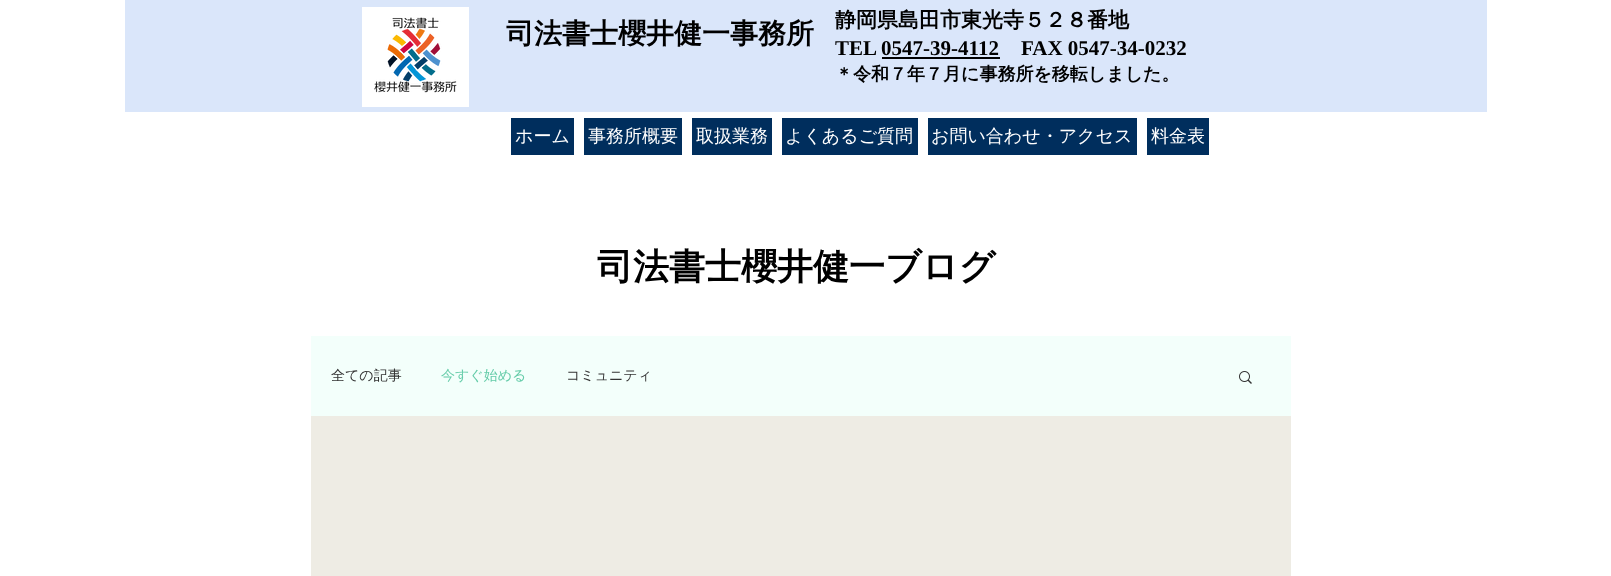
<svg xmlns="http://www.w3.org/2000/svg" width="1611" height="576">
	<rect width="100%" height="100%" fill="#FFFFFF" />
	<rect x="125" y="0" width="1362" height="112" fill="#DAE6FA" />
	<rect x="362" y="7" width="107" height="100" fill="#FFFFFF" />
	<image x="374" y="17" width="83" height="76" href="assets/img1.png" />
	<text x="506" y="43" font-family="WenQuanYi Zen Hei" font-size="28" font-weight="700" fill="#000000">司法書士櫻井健一事務所</text>
	<text x="835" y="27" font-family="WenQuanYi Zen Hei" font-size="21" font-weight="700" fill="#000000">静岡県島田市東光寺５２８番地</text>
	<text x="835" y="55" font-family="Liberation Serif" font-size="21" font-weight="700" fill="#000000">TEL 0547-39-4112</text>
	<rect x="882" y="57" width="118" height="2" fill="#000000" />
	<text x="1021" y="55" font-family="Liberation Serif" font-size="21" font-weight="700" fill="#000000">FAX 0547-34-0232</text>
	<text x="835" y="80" font-family="WenQuanYi Zen Hei" font-size="18" font-weight="700" fill="#000000">＊令和７年７月に事務所を移転しました。</text>
	<rect x="511" y="118" width="63" height="37" fill="#002E5D" />
	<text x="515" y="142" font-family="WenQuanYi Zen Hei" font-size="18" font-weight="500" fill="#FFFFFF">ホーム</text>
	<rect x="584" y="118" width="98" height="37" fill="#002E5D" />
	<text x="588" y="142" font-family="WenQuanYi Zen Hei" font-size="18" font-weight="500" fill="#FFFFFF">事務所概要</text>
	<rect x="692" y="118" width="80" height="37" fill="#002E5D" />
	<text x="696" y="142" font-family="WenQuanYi Zen Hei" font-size="18" font-weight="500" fill="#FFFFFF">取扱業務</text>
	<rect x="782" y="118" width="136" height="37" fill="#002E5D" />
	<text x="785" y="142" font-family="WenQuanYi Zen Hei" font-size="18" font-weight="500" fill="#FFFFFF">よくあるご質問</text>
	<rect x="928" y="118" width="209" height="37" fill="#002E5D" />
	<text x="931" y="142" font-family="WenQuanYi Zen Hei" font-size="18" font-weight="500" fill="#FFFFFF">お問い合わせ・アクセス</text>
	<rect x="1147" y="118" width="62" height="37" fill="#002E5D" />
	<text x="1151" y="142" font-family="WenQuanYi Zen Hei" font-size="18" font-weight="500" fill="#FFFFFF">料金表</text>
	<text x="597" y="279" font-family="WenQuanYi Zen Hei" font-size="36" font-weight="700" fill="#000000">司法書士櫻井健一ブログ</text>
	<rect x="311" y="416" width="980" height="160" fill="#EEECE4" />
	<rect x="311" y="336" width="980" height="80" fill="#F3FFFB" />
	<text x="331" y="380" font-family="WenQuanYi Zen Hei" font-size="14" font-weight="500" fill="#333333">全ての記事</text>
	<text x="441" y="380" font-family="WenQuanYi Zen Hei" font-size="14" font-weight="500" fill="#65CCA9">今すぐ始める</text>
	<text x="566" y="380" font-family="WenQuanYi Zen Hei" font-size="14" font-weight="500" fill="#333333">コミュニティ</text>
	<image x="1239" y="371" width="13" height="13" href="assets/img2.png" />
</svg>
